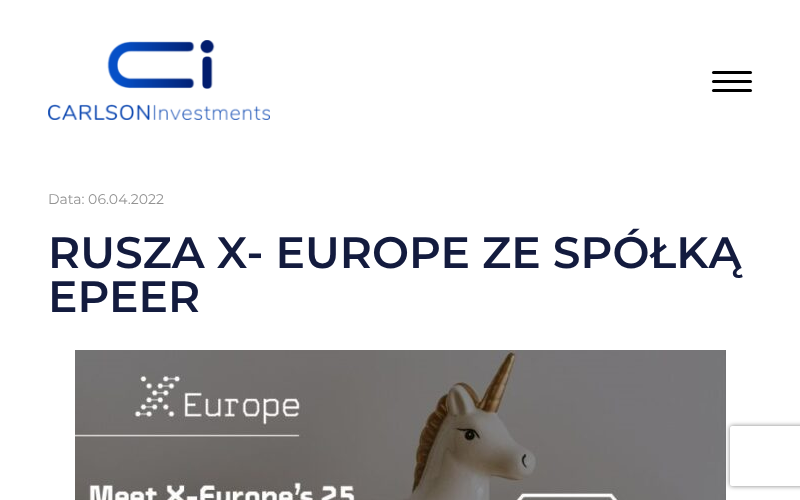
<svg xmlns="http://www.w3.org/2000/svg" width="800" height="500">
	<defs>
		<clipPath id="clip1"><path d="M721 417H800V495H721ZM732 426H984C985 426 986 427 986 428V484C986 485 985 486 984 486H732C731 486 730 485 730 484V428C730 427 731 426 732 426Z" clip-rule="evenodd" /></clipPath>
	</defs>
	<rect width="100%" height="100%" fill="#FFFFFF" />
	<image x="48" y="40" width="222" height="80" href="assets/img1.png" />
	<rect x="712" y="71" width="40" height="3" rx="1.5" fill="#000000" />
	<rect x="712" y="80" width="40" height="3" rx="1.5" fill="#000000" />
	<rect x="712" y="89" width="40" height="3" rx="1.5" fill="#000000" />
	<text x="48" y="204" font-family="Montserrat" font-size="14" fill="#939393">Data: 06.04.2022</text>
	<g font-family="Montserrat" font-size="44" font-weight="600" fill="#131B3E">
		<text x="48" y="268">RUSZA X- EUROPE ZE SPÓŁKĄ</text>
		<text x="48" y="312">EPEER</text>
	</g>
	<image x="75" y="350" width="651" height="150" href="assets/img2.png" />
	<g clip-path="url(#clip1)">
		<rect x="730" y="426" width="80" height="60" rx="2" fill="#808080" filter="blur(2.5px)" />
	</g>
</svg>
